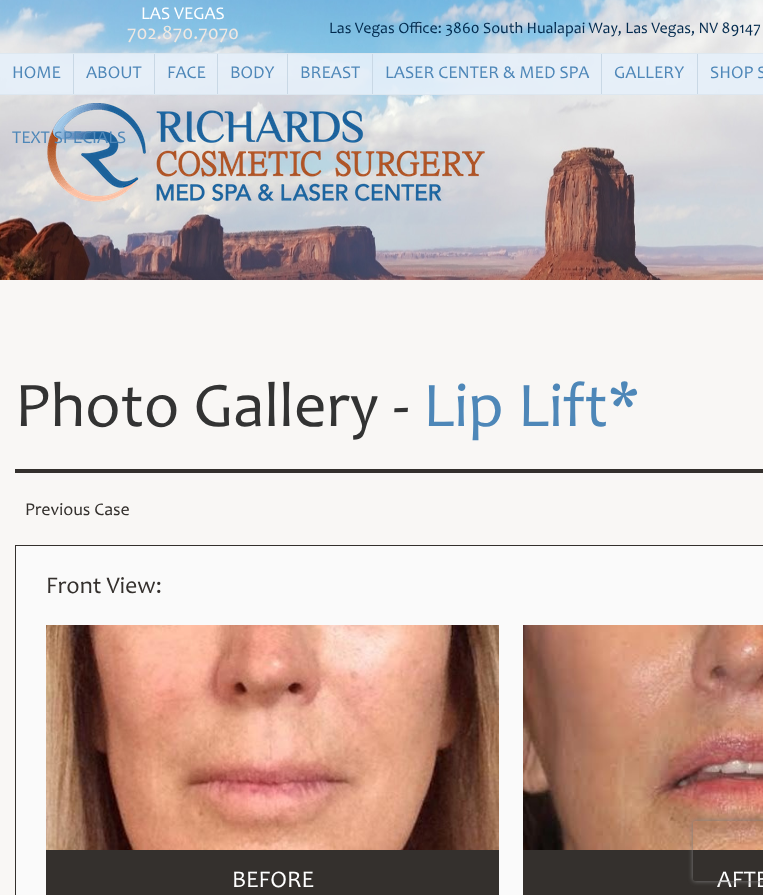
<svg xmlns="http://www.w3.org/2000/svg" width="763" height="895">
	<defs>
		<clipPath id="clip1"><path d="M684 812H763V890H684ZM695 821H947C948 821 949 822 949 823V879C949 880 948 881 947 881H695C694 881 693 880 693 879V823C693 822 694 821 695 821Z" clip-rule="evenodd" /></clipPath>
	</defs>
	<rect width="100%" height="100%" fill="#F9F7F5" />
	<image x="0" y="0" width="763" height="280" href="assets/img2.png" />
	<text x="141" y="19" font-family="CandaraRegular" font-size="18" fill="#FFFFFF">LAS VEGAS</text>
	<text x="127" y="39" font-family="CandaraRegular" font-size="20" fill="#F0E8E2">702.870.7070</text>
	<image x="47" y="103" width="438" height="99" href="assets/img1.png" />
	<text x="329" y="33" font-family="CandaraRegular" font-size="16" fill="#00294D">Las Vegas Office: 3860 South Hualapai Way, Las Vegas, NV 89147</text>
	<rect x="0" y="53" width="763" height="42" fill="#E6F0FA" fill-opacity="0.9" />
	<rect x="0" y="53" width="763" height="1" fill="#DBE5EE" fill-opacity="0.75" />
	<rect x="0" y="94" width="763" height="1" fill="#DAE4ED" fill-opacity="0.75" />
	<rect x="73" y="54" width="1" height="40" fill="#C9D8E5" />
	<text x="12" y="78" font-family="CandaraRegular" font-size="18" fill="#4E87B8">HOME</text>
	<rect x="154" y="54" width="1" height="40" fill="#C9D8E5" />
	<text x="86" y="78" font-family="CandaraRegular" font-size="18" fill="#4E87B8">ABOUT</text>
	<rect x="217" y="54" width="1" height="40" fill="#C9D8E5" />
	<text x="167" y="78" font-family="CandaraRegular" font-size="18" fill="#4E87B8">FACE</text>
	<rect x="287" y="54" width="1" height="40" fill="#C9D8E5" />
	<text x="230" y="78" font-family="CandaraRegular" font-size="18" fill="#4E87B8">BODY</text>
	<rect x="372" y="54" width="1" height="40" fill="#C9D8E5" />
	<text x="300" y="78" font-family="CandaraRegular" font-size="18" fill="#4E87B8">BREAST</text>
	<rect x="601" y="54" width="1" height="40" fill="#C9D8E5" />
	<text x="385" y="78" font-family="CandaraRegular" font-size="18" fill="#4E87B8">LASER CENTER &amp; MED SPA</text>
	<rect x="697" y="54" width="1" height="40" fill="#C9D8E5" />
	<g font-family="CandaraRegular" font-size="18" fill="#4E87B8">
		<text x="614" y="78">GALLERY</text>
		<text x="710" y="78">SHOP S</text>
		<text x="12" y="143">TEXT SPECIALS</text>
	</g>
	<rect x="15" y="469" width="748" height="4" fill="#34302D" />
	<text x="15" y="426" font-family="CandaraRegular" font-size="64" fill="#333333">Photo Gallery -</text>
	<text x="423" y="426" font-family="CandaraRegular" font-size="64" fill="#4E87B8">Lip Lift*</text>
	<text x="25" y="515" font-family="CandaraRegular" font-size="18" fill="#34302D">Previous Case</text>
	<rect x="15.5" y="545.5" width="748" height="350" fill="#FAFAFA" stroke="#34302D" />
	<text x="46" y="593" font-family="CandaraRegular" font-size="24" fill="#34302D">Front View:</text>
	<rect x="46" y="850" width="453" height="45" fill="#34302D" />
	<image x="46" y="625" width="453" height="225" href="assets/img3.png" />
	<text x="232" y="887" font-family="CandaraRegular" font-size="24" fill="#FFFFFF">BEFORE</text>
	<rect x="523" y="850" width="240" height="45" fill="#34302D" />
	<image x="523" y="625" width="240" height="225" href="assets/img4.png" />
	<text x="717" y="887" font-family="CandaraRegular" font-size="24" fill="#FFFFFF">AFTE</text>
	<g clip-path="url(#clip1)">
		<rect x="693" y="821" width="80" height="60" rx="2" fill="#808080" filter="blur(2.5px)" />
	</g>
</svg>
